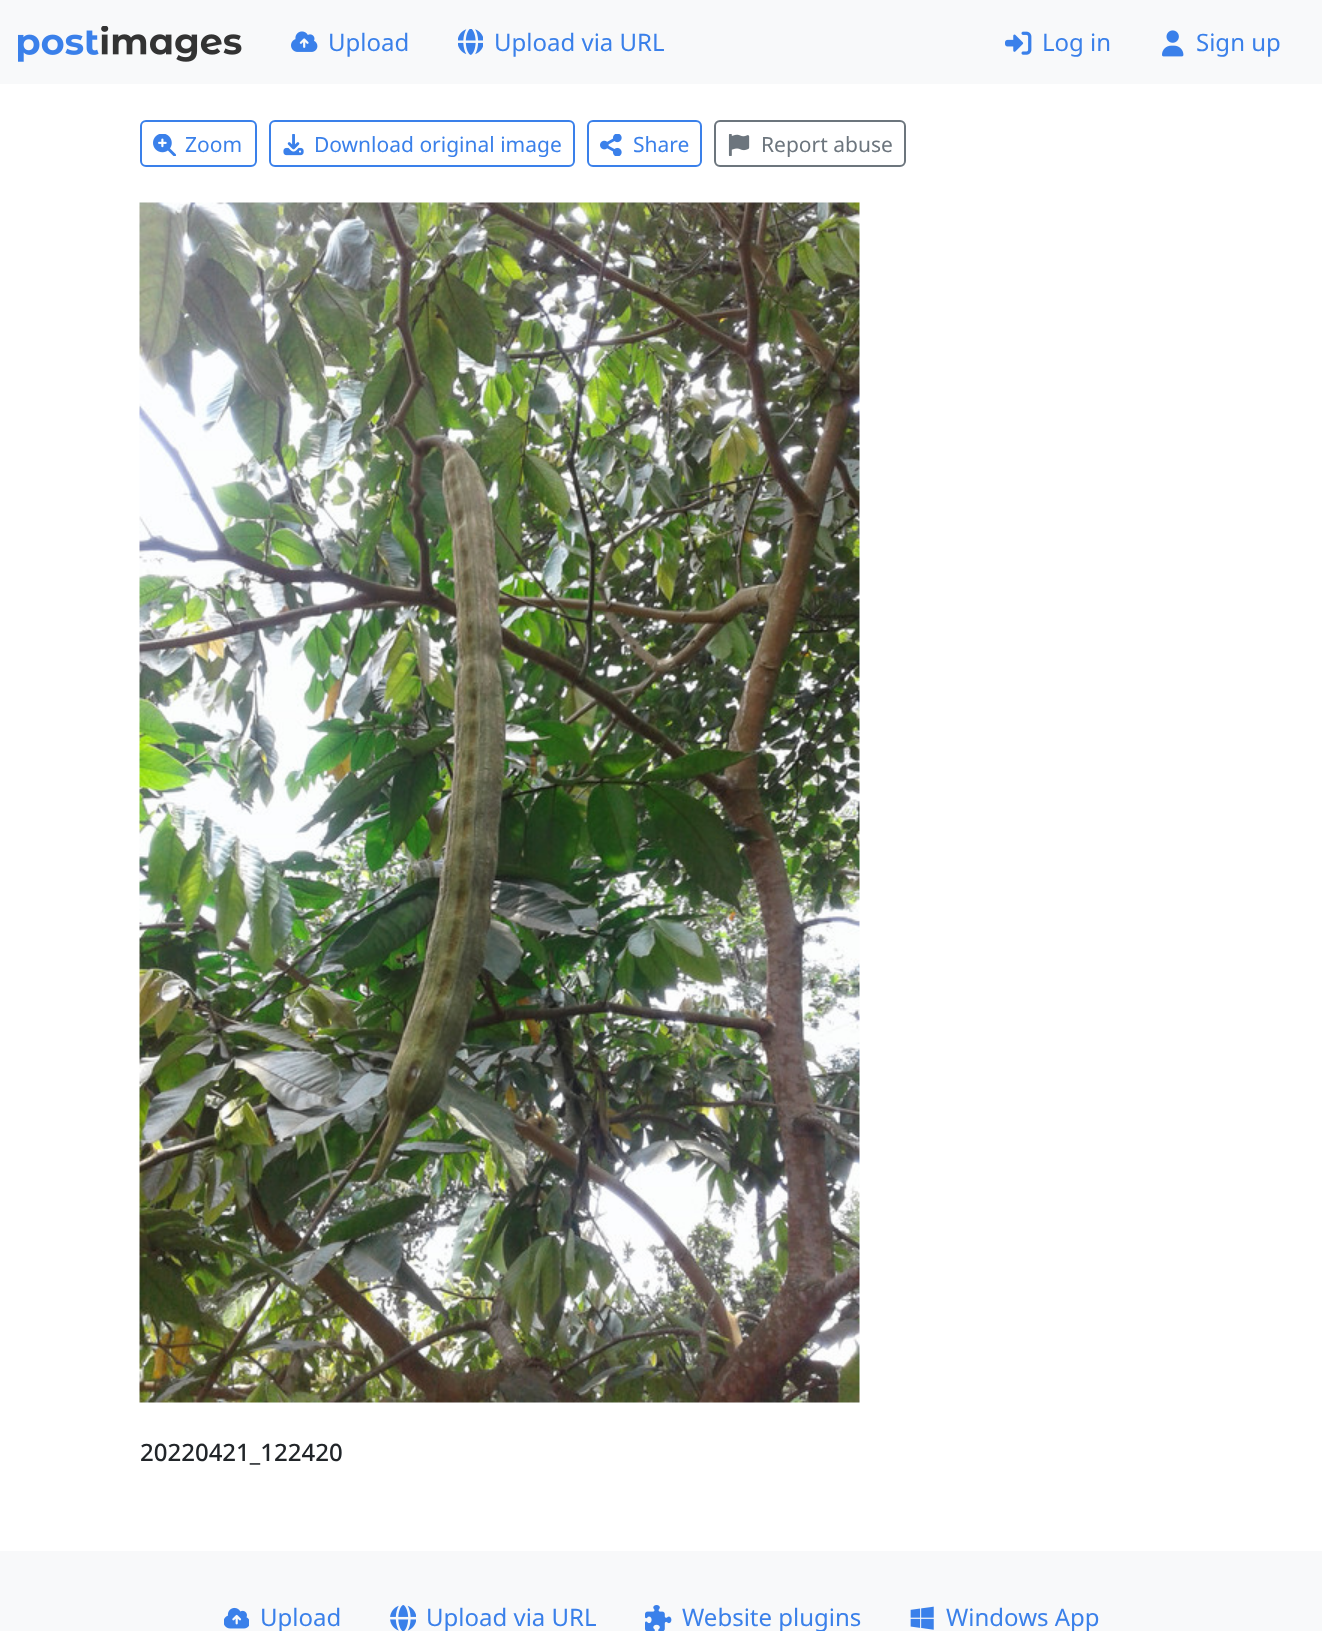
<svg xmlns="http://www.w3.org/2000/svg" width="1322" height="1631">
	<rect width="100%" height="100%" fill="#FFFFFF" />
	<rect x="0" y="0" width="1322" height="84" fill="#F8F9FA" />
	<image x="18" y="26" width="224" height="36" href="assets/img1.png" />
	<image x="291" y="31" width="27" height="21" href="assets/img2.png" />
	<text x="328" y="51" font-family="Noto Sans" font-size="24" fill="#3A80EA">Upload</text>
	<image x="458" y="29" width="25" height="26" href="assets/img3.png" />
	<text x="494" y="51" font-family="Noto Sans" font-size="24" fill="#3A80EA">Upload via URL</text>
	<image x="1005" y="31" width="27" height="24" href="assets/img4.png" />
	<text x="1042" y="51" font-family="Noto Sans" font-size="24" fill="#3A80EA">Log in</text>
	<image x="1162" y="30" width="22" height="27" href="assets/img5.png" />
	<text x="1196" y="51" font-family="Noto Sans" font-size="24" fill="#3A80EA">Sign up</text>
	<rect x="141" y="121" width="115" height="45" rx="5" fill="none" stroke="#3A80EA" stroke-width="2" />
	<image x="153" y="134" width="23" height="22" href="assets/img6.png" />
	<text x="185" y="152" font-family="Noto Sans" font-size="21" fill="#3A80EA">Zoom</text>
	<rect x="270" y="121" width="304" height="45" rx="5" fill="none" stroke="#3A80EA" stroke-width="2" />
	<image x="283" y="134" width="21" height="22" href="assets/img7.png" />
	<text x="314" y="152" font-family="Noto Sans" font-size="21" fill="#3A80EA">Download original image</text>
	<rect x="588" y="121" width="113" height="45" rx="5" fill="none" stroke="#3A80EA" stroke-width="2" />
	<image x="600" y="134" width="22" height="22" href="assets/img8.png" />
	<text x="633" y="152" font-family="Noto Sans" font-size="21" fill="#3A80EA">Share</text>
	<rect x="715" y="121" width="190" height="45" rx="5" fill="none" stroke="#6C757D" stroke-width="2" />
	<image x="728" y="134" width="22" height="22" href="assets/img9.png" />
	<text x="761" y="152" font-family="Noto Sans" font-size="21" fill="#6C757D">Report abuse</text>
	<image x="139" y="202" width="721" height="1201" href="assets/img10.png" />
	<text x="140" y="1461" font-family="Noto Sans" font-size="24" font-weight="500" fill="#212529">20220421_122420</text>
	<rect x="0" y="1551" width="1322" height="80" fill="#F8F9FA" />
	<image x="224" y="1607" width="25" height="22" href="assets/img11.png" />
	<text x="260" y="1626" font-family="Noto Sans" font-size="24" fill="#3A80EA">Upload</text>
	<image x="390" y="1605" width="26" height="26" href="assets/img12.png" />
	<text x="426" y="1626" font-family="Noto Sans" font-size="24" fill="#3A80EA">Upload via URL</text>
	<image x="645" y="1605" width="27" height="26" href="assets/img13.png" />
	<text x="682" y="1626" font-family="Noto Sans" font-size="24" fill="#3A80EA">Website plugins</text>
	<image x="910" y="1606" width="24" height="24" href="assets/img14.png" />
	<text x="946" y="1626" font-family="Noto Sans" font-size="24" fill="#3A80EA">Windows App</text>
</svg>
